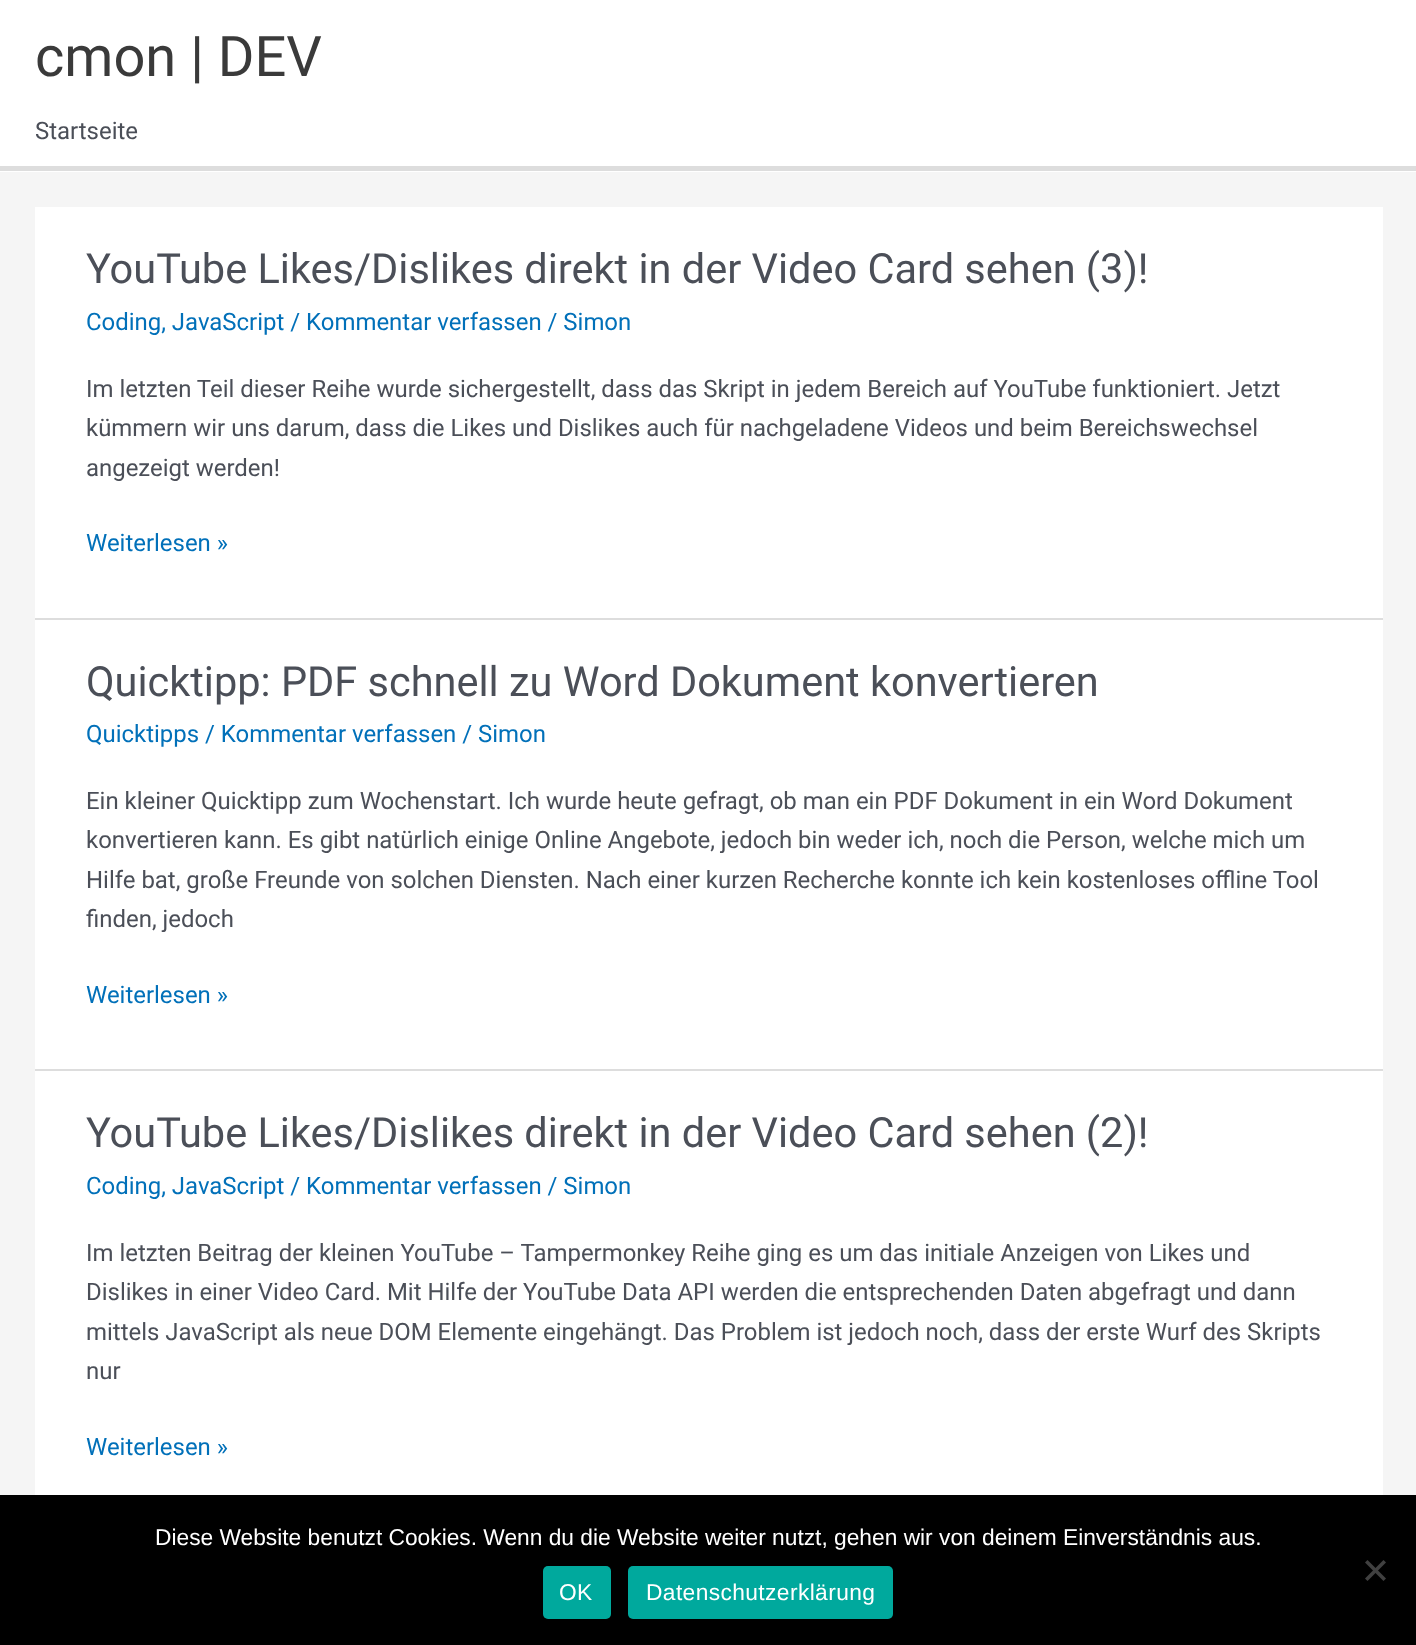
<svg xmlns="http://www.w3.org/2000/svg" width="1416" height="1645">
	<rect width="100%" height="100%" fill="#F5F5F5" />
	<rect x="0" y="0" width="1416" height="172" fill="#FFFFFF" />
	<rect x="0" y="166" width="1416" height="5" fill="#DDDDDD" />
	<text x="35" y="76" font-family="Roboto" font-size="56" fill="#3A3A3A">cmon | DEV</text>
	<text x="35" y="139" font-family="Roboto" font-size="23.95" fill="#4B4F58">Startseite</text>
	<rect x="35" y="207" width="1348" height="411" fill="#FFFFFF" />
	<rect x="35" y="618" width="1348" height="2" fill="#DDDDDD" />
	<text x="86" y="283" font-family="Roboto" font-size="41.5" fill="#4B4F58">YouTube Likes/Dislikes direkt in der Video Card sehen (3)!</text>
	<text x="86" y="330" font-family="Roboto" font-size="23.95" fill="#0170B9">Coding, JavaScript / Kommentar verfassen / Simon</text>
	<g font-family="Roboto" font-size="23.95" fill="#4B4F58">
		<text x="86" y="397">Im letzten Teil dieser Reihe wurde sichergestellt, dass das Skript in jedem Bereich auf YouTube funktioniert. Jetzt</text>
		<text x="86" y="436">kümmern wir uns darum, dass die Likes und Dislikes auch für nachgeladene Videos und beim Bereichswechsel</text>
		<text x="86" y="476">angezeigt werden!</text>
	</g>
	<text x="86" y="551" font-family="Roboto" font-size="23.95" fill="#0170B9">Weiterlesen »</text>
	<rect x="35" y="620" width="1348" height="449" fill="#FFFFFF" />
	<rect x="35" y="1069" width="1348" height="2" fill="#DDDDDD" />
	<text x="86" y="696" font-family="Roboto" font-size="41.5" fill="#4B4F58">Quicktipp: PDF schnell zu Word Dokument konvertieren</text>
	<text x="86" y="742" font-family="Roboto" font-size="23.95" fill="#0170B9">Quicktipps / Kommentar verfassen / Simon</text>
	<g font-family="Roboto" font-size="23.95" fill="#4B4F58">
		<text x="86" y="809">Ein kleiner Quicktipp zum Wochenstart. Ich wurde heute gefragt, ob man ein PDF Dokument in ein Word Dokument</text>
		<text x="86" y="848">konvertieren kann. Es gibt natürlich einige Online Angebote, jedoch bin weder ich, noch die Person, welche mich um</text>
		<text x="86" y="888">Hilfe bat, große Freunde von solchen Diensten. Nach einer kurzen Recherche konnte ich kein kostenloses offline Tool</text>
		<text x="86" y="927">finden, jedoch</text>
	</g>
	<text x="86" y="1003" font-family="Roboto" font-size="23.95" fill="#0170B9">Weiterlesen »</text>
	<rect x="35" y="1071" width="1348" height="424" fill="#FFFFFF" />
	<text x="86" y="1147" font-family="Roboto" font-size="41.5" fill="#4B4F58">YouTube Likes/Dislikes direkt in der Video Card sehen (2)!</text>
	<text x="86" y="1194" font-family="Roboto" font-size="23.95" fill="#0170B9">Coding, JavaScript / Kommentar verfassen / Simon</text>
	<g font-family="Roboto" font-size="23.95" fill="#4B4F58">
		<text x="86" y="1261">Im letzten Beitrag der kleinen YouTube – Tampermonkey Reihe ging es um das initiale Anzeigen von Likes und</text>
		<text x="86" y="1300">Dislikes in einer Video Card. Mit Hilfe der YouTube Data API werden die entsprechenden Daten abgefragt und dann</text>
		<text x="86" y="1340">mittels JavaScript als neue DOM Elemente eingehängt. Das Problem ist jedoch noch, dass der erste Wurf des Skripts</text>
		<text x="86" y="1379">nur</text>
	</g>
	<text x="86" y="1455" font-family="Roboto" font-size="23.95" fill="#0170B9">Weiterlesen »</text>
	<rect x="0" y="1495" width="1416" height="150" fill="#000000" />
	<text x="155" y="1545" font-family="Liberation Sans" font-size="22.75" fill="#FFFFFF">Diese Website benutzt Cookies. Wenn du die Website weiter nutzt, gehen wir von deinem Einverständnis aus.</text>
	<path d="M1383.5 1560L1386 1562.5L1367.5 1581L1365 1578.5Z" fill="#404040" />
	<path d="M1365 1562.5L1367.5 1560L1386 1578.5L1383.5 1581Z" fill="#404040" />
	<rect x="543" y="1566" width="68" height="53" rx="5" fill="#00A99D" />
	<text x="559" y="1600" font-family="Liberation Sans" font-size="22.75" letter-spacing="0.4" fill="#FFFFFF">OK</text>
	<rect x="628" y="1566" width="265" height="53" rx="5" fill="#00A99D" />
	<text x="646" y="1600" font-family="Liberation Sans" font-size="22.75" letter-spacing="0.4" fill="#FFFFFF">Datenschutzerklärung</text>
</svg>
